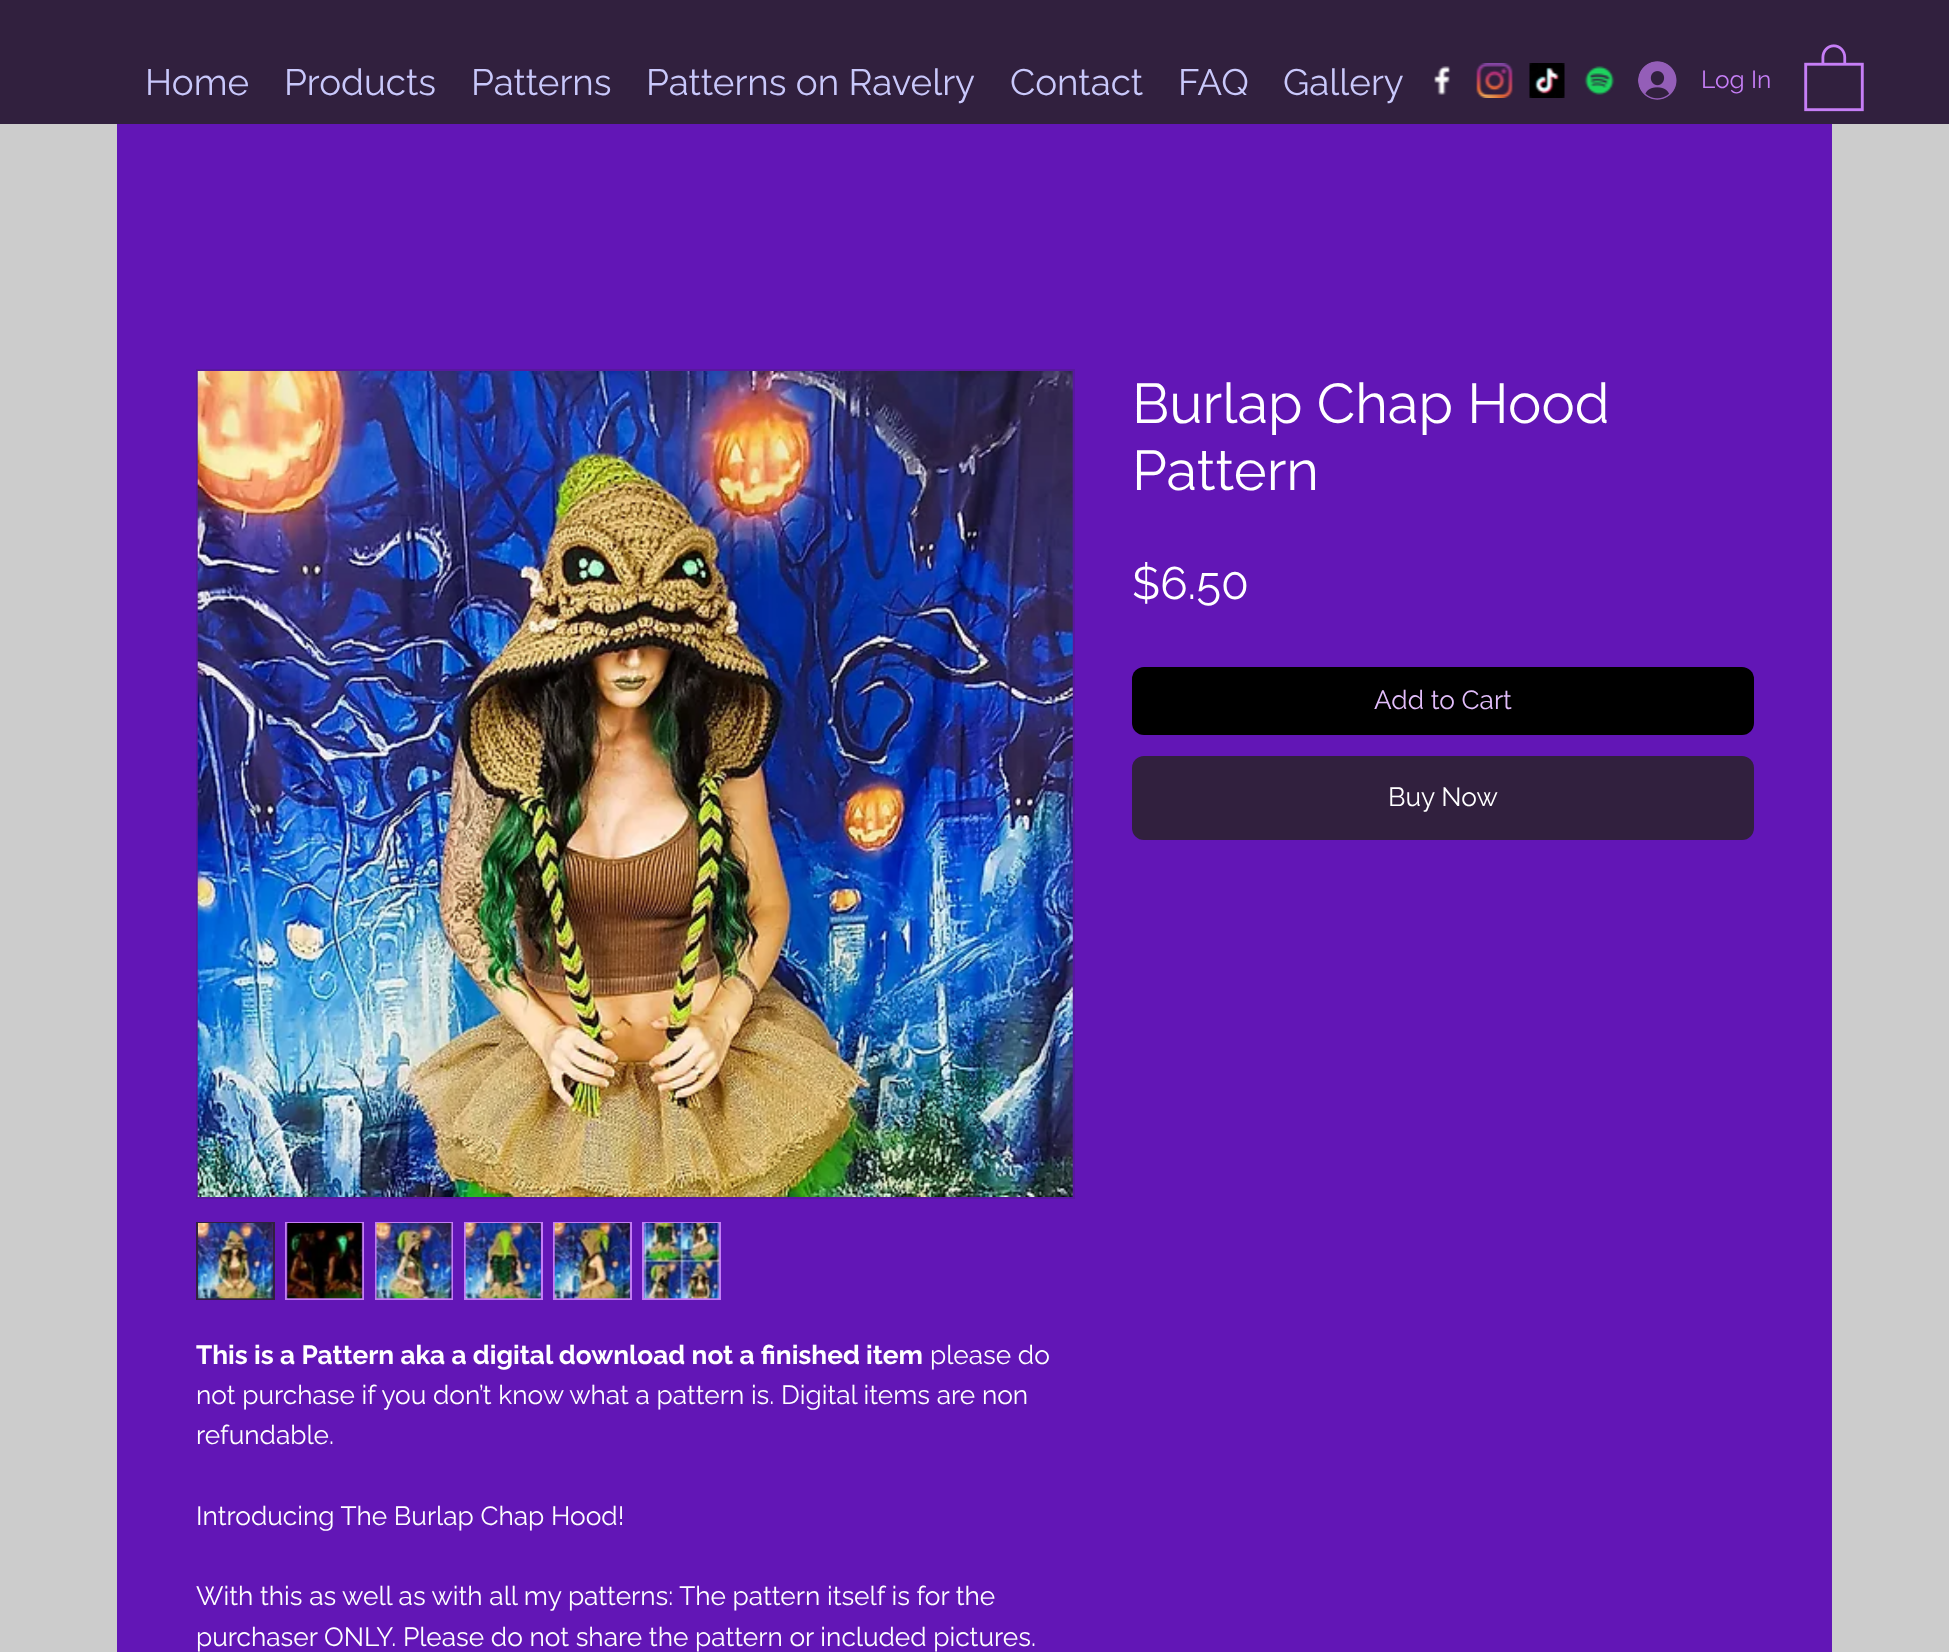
<svg xmlns="http://www.w3.org/2000/svg" width="1949" height="1652">
	<rect width="100%" height="100%" fill="#31203E" />
	<g font-family="Raleway" font-size="36.75" fill="#C9C8FB">
		<text x="145" y="95">Home</text>
		<text x="284" y="95">Products</text>
		<text x="471" y="95">Patterns</text>
		<text x="646" y="95">Patterns on Ravelry</text>
		<text x="1010" y="95">Contact</text>
		<text x="1178" y="95">FAQ</text>
		<text x="1283" y="95">Gallery</text>
	</g>
	<image x="1434" y="66" width="17" height="29" href="assets/img1.png" />
	<image x="1476" y="63" width="37" height="35" href="assets/img2.png" />
	<image x="1529" y="63" width="36" height="35" href="assets/img3.png" />
	<image x="1584" y="66" width="31" height="29" href="assets/img4.png" />
	<image x="1638" y="61" width="39" height="39" href="assets/img5.png" />
	<text x="1701" y="88" font-family="Raleway" font-size="24.5" fill="#C67EF6">Log In</text>
	<image x="1804" y="44" width="60" height="68" href="assets/img6.png" />
	<rect x="0" y="124" width="1949" height="1528" fill="#CCCCCC" />
	<rect x="117" y="124" width="1715" height="1528" fill="#6216B6" />
	<g font-family="Raleway" font-size="56" fill="#FFFFFF">
		<text x="1132" y="423">Burlap Chap Hood</text>
		<text x="1132" y="490">Pattern</text>
	</g>
	<text x="1132" y="599" font-family="Raleway" font-size="45.5" fill="#FFFFFF">$6.50</text>
	<rect x="1132" y="667" width="622" height="68" rx="12" fill="#000000" />
	<text x="1374" y="709" font-family="Raleway" font-size="26.25" fill="#E2BDFB">Add to Cart</text>
	<rect x="1132" y="756" width="622" height="84" rx="12" fill="#31203E" />
	<text x="1388" y="806" font-family="Raleway" font-size="26.25" fill="#FFFFFF">Buy Now</text>
	<rect x="197" y="370" width="877" height="828" fill="none" stroke="#58189E" stroke-width="2" />
	<image x="197" y="371" width="876" height="826" href="assets/img7.png" />
	<rect x="197" y="1223" width="77" height="76" fill="none" stroke="#31203E" stroke-width="2" />
	<image x="198" y="1223" width="76" height="76" href="assets/img8.png" />
	<rect x="286" y="1223" width="77" height="76" fill="none" stroke="#C67EF6" stroke-width="2" />
	<image x="286" y="1223" width="77" height="76" href="assets/img9.png" />
	<rect x="376" y="1223" width="76" height="76" fill="none" stroke="#C67EF6" stroke-width="2" />
	<image x="375" y="1223" width="77" height="76" href="assets/img10.png" />
	<rect x="465" y="1223" width="77" height="76" fill="none" stroke="#C67EF6" stroke-width="2" />
	<image x="465" y="1223" width="76" height="76" href="assets/img11.png" />
	<rect x="554" y="1223" width="77" height="76" fill="none" stroke="#C67EF6" stroke-width="2" />
	<image x="554" y="1223" width="77" height="76" href="assets/img12.png" />
	<rect x="643" y="1223" width="77" height="76" fill="none" stroke="#C67EF6" stroke-width="2" />
	<image x="643" y="1223" width="77" height="76" href="assets/img13.png" />
	<text x="196" y="1364" font-family="Raleway" font-size="26.25" font-weight="700" fill="#FFFFFF">This is a Pattern aka a digital download not a finished item</text>
	<g font-family="Raleway" font-size="26.25" fill="#FFFFFF">
		<text x="930" y="1364">please do</text>
		<text x="196" y="1404">not purchase if you don’t know what a pattern is. Digital items are non</text>
		<text x="196" y="1444">refundable.</text>
		<text x="196" y="1525">Introducing The Burlap Chap Hood!</text>
		<text x="196" y="1605">With this as well as with all my patterns: The pattern itself is for the</text>
		<text x="196" y="1646">purchaser ONLY. Please do not share the pattern or included pictures.</text>
	</g>
</svg>
